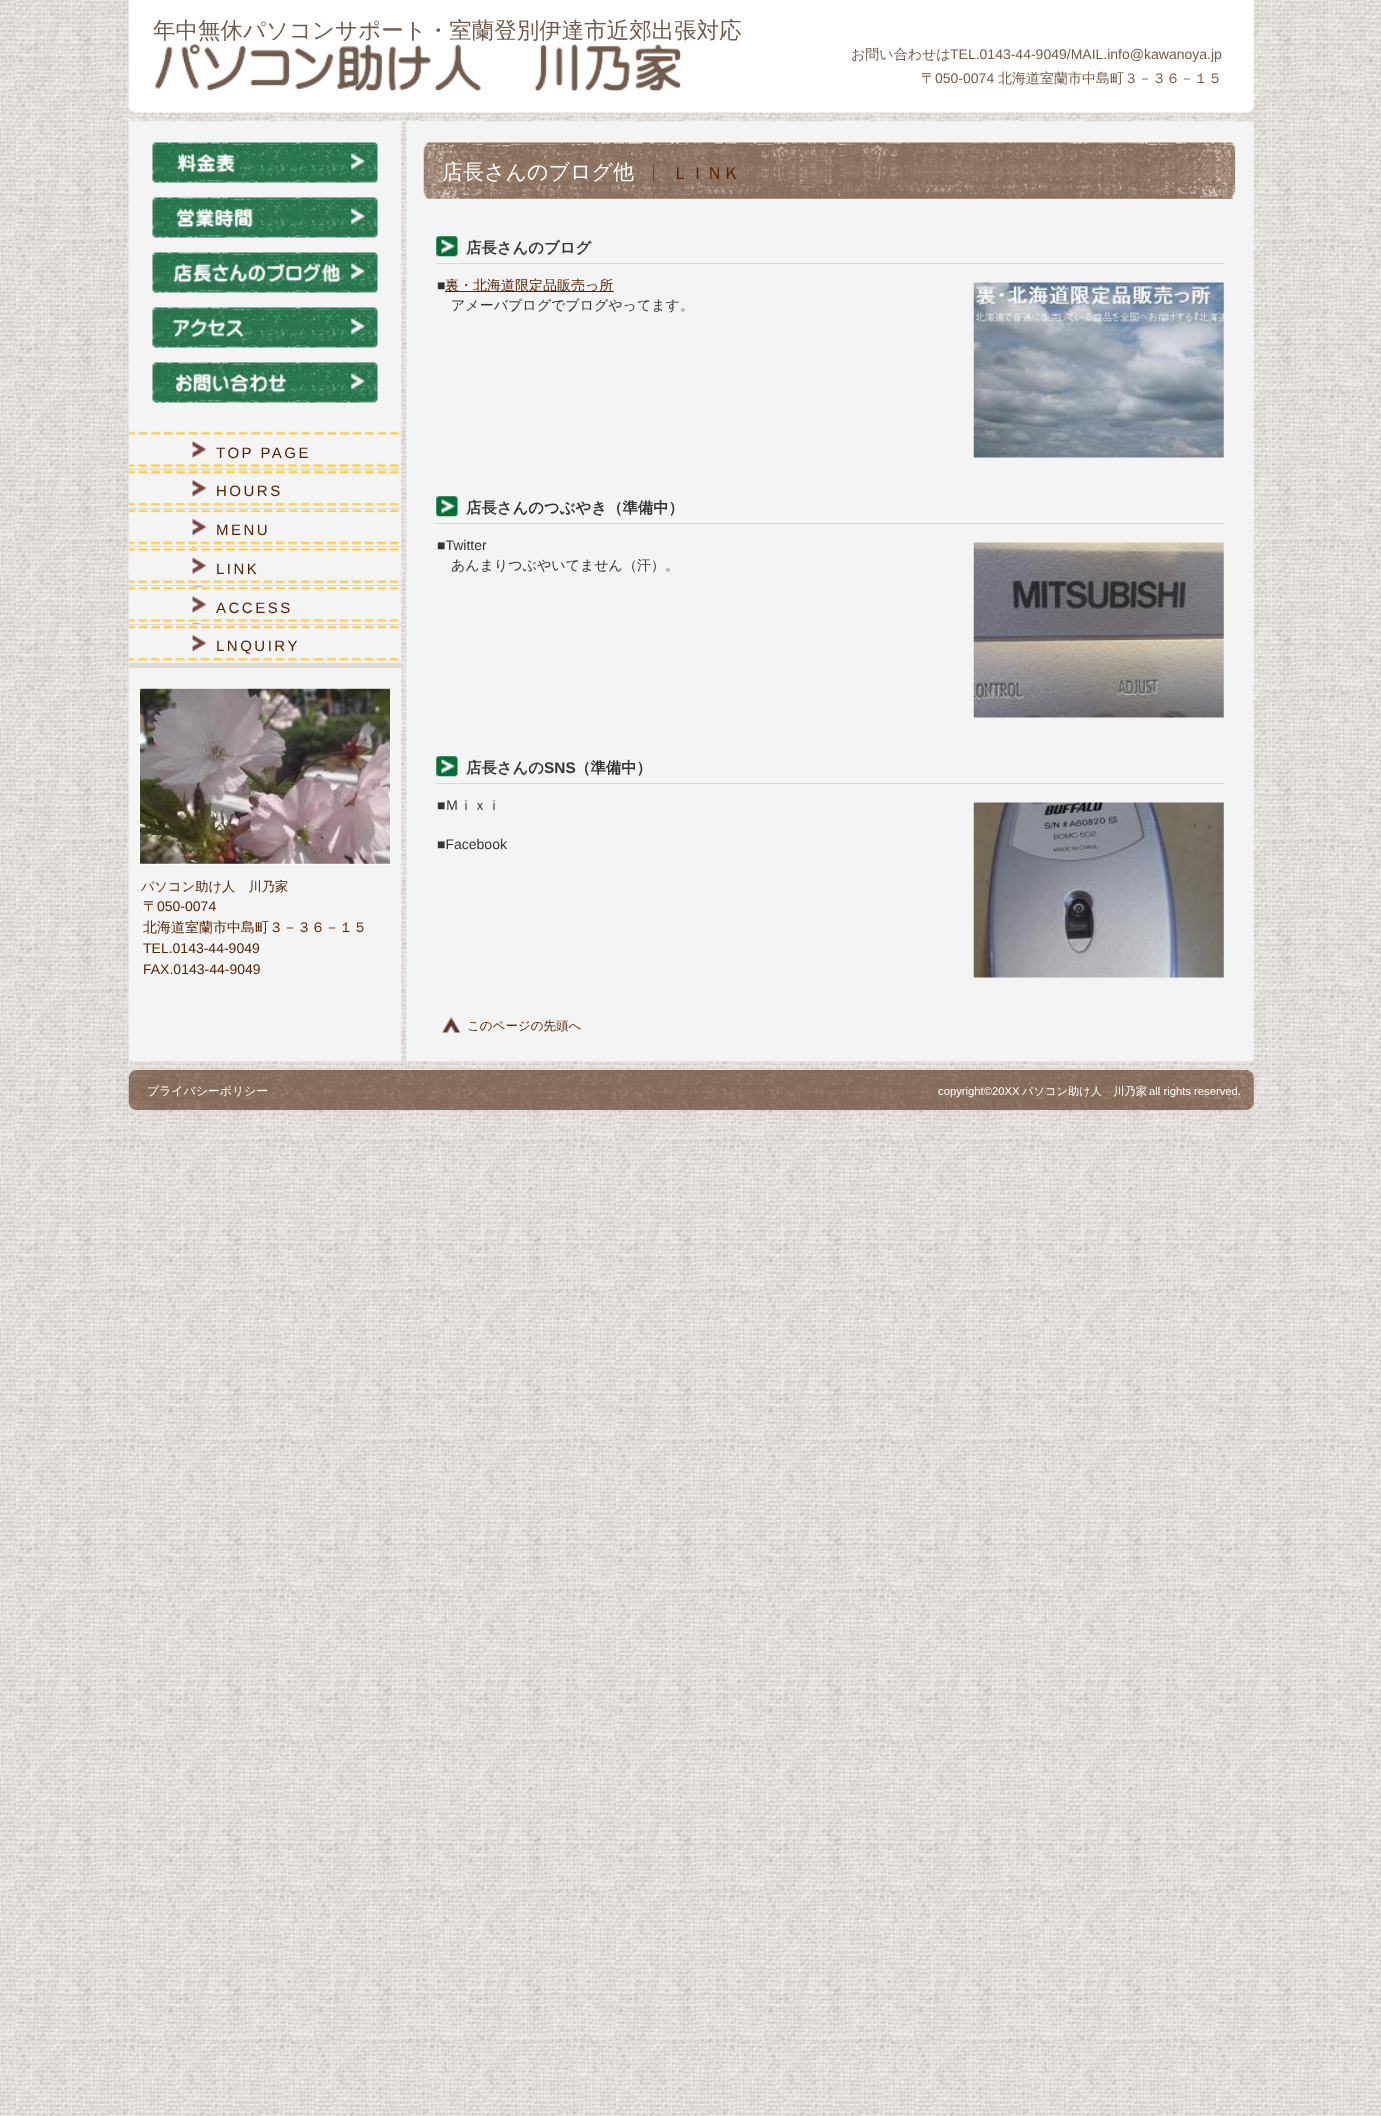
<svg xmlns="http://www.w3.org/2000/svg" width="1381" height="2116">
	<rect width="100%" height="100%" fill="#FFFFFF" />
	<image x="0" y="0" width="1381" height="2116" href="assets/img1.png" />
	<image x="128" y="0" width="1126" height="113" href="assets/img2.png" />
	<text x="153" y="38" font-family="WenQuanYi Zen Hei" font-size="22.5" font-weight="500" fill="#715B4D">年中無休パソコンサポート・室蘭登別伊達市近郊出張対応</text>
	<image x="154" y="43" width="528" height="49" href="assets/img3.png" />
	<text x="851" y="59" font-family="WenQuanYi Zen Hei" font-size="14" font-weight="500" fill="#715B4D">お問い合わせは</text>
	<text x="950" y="59" font-family="Liberation Sans" font-size="14" fill="#715B4D">TEL.0143-44-9049/MAIL.info@kawanoya.jp</text>
	<text x="921" y="83" font-family="WenQuanYi Zen Hei" font-size="14" font-weight="500" fill="#715B4D">〒</text>
	<text x="935" y="83" font-family="Liberation Sans" font-size="14" fill="#715B4D">050-0074</text>
	<text x="998" y="83" font-family="WenQuanYi Zen Hei" font-size="14" font-weight="500" fill="#715B4D">北海道室蘭市中島町３－３６－１５</text>
	<image x="128" y="121" width="1126" height="941" href="assets/img4.png" />
	<rect x="129" y="663" width="272" height="5" fill="#DFDAD3" />
	<image x="128" y="434" width="271" height="229" href="assets/img5.png" />
	<rect x="129" y="469" width="272" height="1" fill="#DFDAD3" />
	<image x="128" y="431" width="271" height="38" href="assets/img6.png" />
	<text x="216" y="458" font-family="Liberation Sans" font-size="15" letter-spacing="2.5" fill="#532200">TOP PAGE</text>
	<rect x="129" y="508" width="272" height="1" fill="#DFDAD3" />
	<image x="128" y="470" width="271" height="36" href="assets/img7.png" />
	<text x="216" y="496" font-family="Liberation Sans" font-size="15" letter-spacing="2.5" fill="#532200">HOURS</text>
	<rect x="129" y="546" width="272" height="1" fill="#DFDAD3" />
	<image x="128" y="509" width="271" height="37" href="assets/img8.png" />
	<text x="216" y="535" font-family="Liberation Sans" font-size="15" letter-spacing="2.5" fill="#532200">MENU</text>
	<rect x="129" y="585" width="272" height="1" fill="#DFDAD3" />
	<image x="128" y="547" width="271" height="38" href="assets/img9.png" />
	<text x="216" y="574" font-family="Liberation Sans" font-size="15" letter-spacing="2.5" fill="#532200">LINK</text>
	<rect x="129" y="624" width="272" height="1" fill="#DFDAD3" />
	<image x="128" y="586" width="271" height="38" href="assets/img10.png" />
	<text x="216" y="613" font-family="Liberation Sans" font-size="15" letter-spacing="2.5" fill="#532200">ACCESS</text>
	<image x="128" y="625" width="271" height="36" href="assets/img11.png" />
	<text x="216" y="651" font-family="Liberation Sans" font-size="15" letter-spacing="2.5" fill="#532200">LNQUIRY</text>
	<image x="423" y="142" width="813" height="57" href="assets/img12.png" />
	<text x="442" y="179" font-family="WenQuanYi Zen Hei" font-size="21" font-weight="500" fill="#FFFFFF">店長さんのブログ他</text>
	<text x="672" y="179" font-family="WenQuanYi Zen Hei" font-size="17" font-weight="500" fill="#532200">ＬＩＮＫ</text>
	<rect x="653" y="164" width="1" height="19" fill="#784440" />
	<image x="436" y="236" width="22" height="21" href="assets/img13.png" />
	<rect x="436" y="263" width="788" height="1" fill="#DAD3C6" />
	<text x="466" y="253" font-family="WenQuanYi Zen Hei" font-size="15.4" font-weight="700" fill="#333333">店長さんのブログ</text>
	<text x="437" y="290" font-family="Liberation Sans" font-size="14" fill="#333333">■</text>
	<rect x="445" y="291" width="169" height="1" fill="#532200" />
	<text x="445" y="290" font-family="WenQuanYi Zen Hei" font-size="14" font-weight="500" fill="#532200">裏・北海道限定品販売っ所</text>
	<text x="451" y="310" font-family="WenQuanYi Zen Hei" font-size="14" font-weight="500" fill="#333333">アメーバブログでブログやってます。</text>
	<image x="973" y="282" width="251" height="176" href="assets/img14.png" />
	<image x="436" y="496" width="22" height="21" href="assets/img13.png" />
	<rect x="436" y="523" width="788" height="1" fill="#DAD3C6" />
	<text x="466" y="513" font-family="WenQuanYi Zen Hei" font-size="15.4" font-weight="700" fill="#333333">店長さんのつぶやき（準備中）</text>
	<text x="437" y="550" font-family="Liberation Sans" font-size="14" fill="#333333">■Twitter</text>
	<text x="451" y="570" font-family="WenQuanYi Zen Hei" font-size="14" font-weight="500" fill="#333333">あんまりつぶやいてません（汗）。</text>
	<image x="973" y="542" width="251" height="176" href="assets/img15.png" />
	<image x="436" y="756" width="22" height="21" href="assets/img13.png" />
	<rect x="436" y="783" width="788" height="1" fill="#DAD3C6" />
	<text x="466" y="773" font-family="WenQuanYi Zen Hei" font-size="15.4" font-weight="700" fill="#333333">店長さんの</text>
	<text x="544" y="773" font-family="Liberation Sans" font-size="15.4" font-weight="700" fill="#333333">SNS</text>
	<text x="575" y="773" font-family="WenQuanYi Zen Hei" font-size="15.4" font-weight="700" fill="#333333">（準備中）</text>
	<text x="437" y="810" font-family="Liberation Sans" font-size="14" fill="#333333">■</text>
	<text x="445" y="810" font-family="WenQuanYi Zen Hei" font-size="14" font-weight="500" fill="#333333">Ｍｉｘｉ</text>
	<text x="437" y="849" font-family="Liberation Sans" font-size="14" fill="#333333">■Facebook</text>
	<image x="973" y="802" width="251" height="176" href="assets/img16.png" />
	<image x="442" y="1017" width="18" height="16" href="assets/img17.png" />
	<text x="467" y="1030" font-family="WenQuanYi Zen Hei" font-size="12.5" font-weight="500" fill="#532200">このページの先頭へ</text>
	<image x="152" y="142" width="226" height="41" href="assets/img18.png" />
	<image x="152" y="197" width="226" height="41" href="assets/img19.png" />
	<image x="152" y="252" width="226" height="41" href="assets/img20.png" />
	<image x="152" y="307" width="226" height="41" href="assets/img21.png" />
	<image x="152" y="362" width="226" height="41" href="assets/img22.png" />
	<rect x="139.5" y="688.5" width="251" height="176" fill="none" stroke="#FFFFFF" />
	<image x="140" y="688" width="250" height="176" href="assets/img23.png" />
	<text x="141" y="891" font-family="WenQuanYi Zen Hei" font-size="13.25" font-weight="500" fill="#532200">パソコン助け人　川乃家</text>
	<text x="143" y="911" font-family="WenQuanYi Zen Hei" font-size="14" font-weight="500" fill="#532200">〒</text>
	<text x="157" y="911" font-family="Liberation Sans" font-size="14" fill="#532200">050-0074</text>
	<text x="143" y="932" font-family="WenQuanYi Zen Hei" font-size="14" font-weight="500" fill="#532200">北海道室蘭市中島町３－３６－１５</text>
	<g font-family="Liberation Sans" font-size="14" fill="#532200">
		<text x="143" y="953">TEL.0143-44-9049</text>
		<text x="143" y="974">FAX.0143-44-9049</text>
	</g>
	<image x="128" y="1070" width="1126" height="40" href="assets/img24.png" />
	<text x="147" y="1095" font-family="WenQuanYi Zen Hei" font-size="11.9" font-weight="500" fill="#FFFFFF">プライバシーポリシー</text>
	<text x="938" y="1095" font-family="Liberation Sans" font-size="11.25" fill="#FFFFFF">copyright©20XX</text>
	<text x="1022" y="1095" font-family="WenQuanYi Zen Hei" font-size="11.25" font-weight="500" fill="#FFFFFF">パソコン助け人　川乃家</text>
	<text x="1149" y="1095" font-family="Liberation Sans" font-size="11.25" fill="#FFFFFF">all rights reserved.</text>
</svg>
